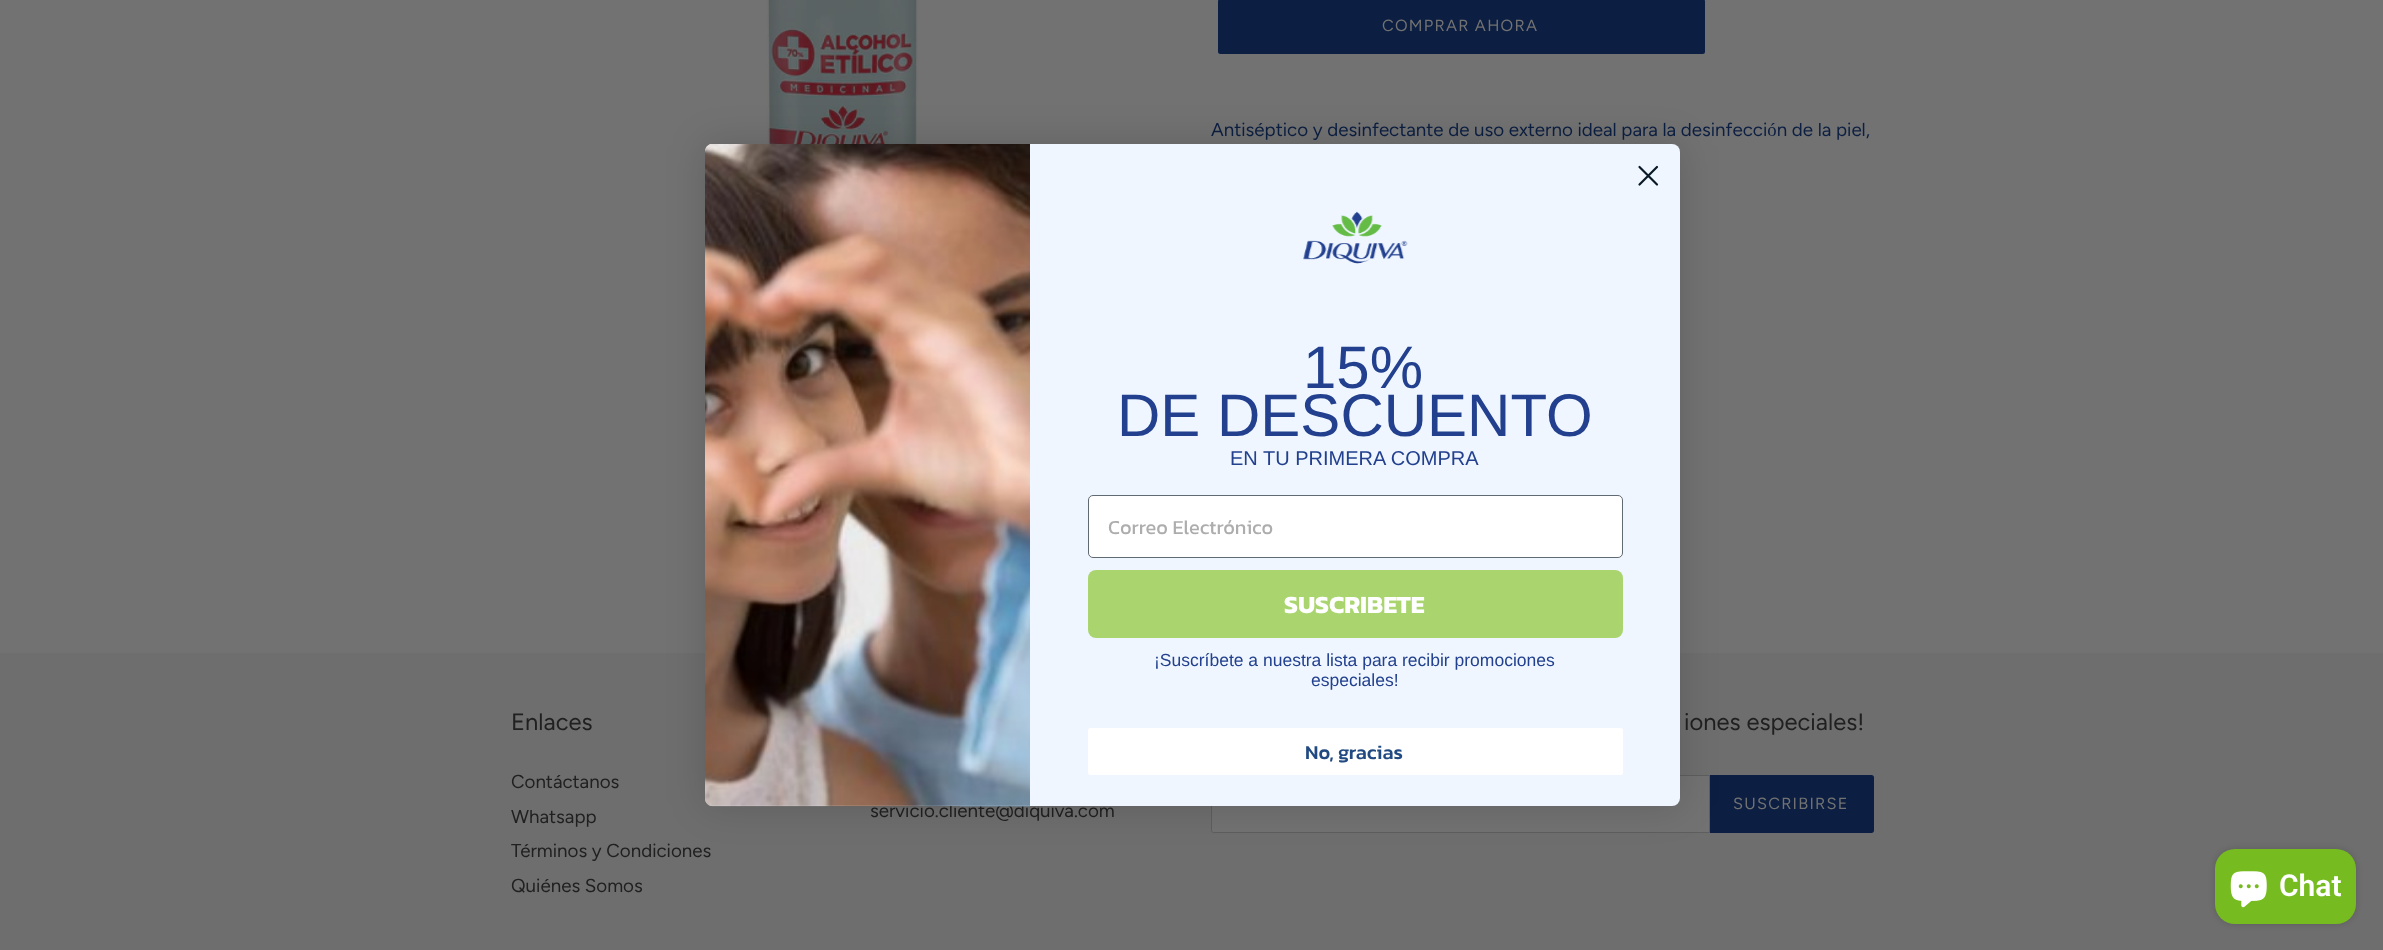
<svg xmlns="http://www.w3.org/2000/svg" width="2383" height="950">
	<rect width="100%" height="100%" fill="#727272" />
	<image x="766" y="0" width="153" height="144" href="assets/img1.png" />
	<rect x="1218" y="-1" width="487" height="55" rx="2.5" fill="#0C1F42" />
	<text x="1382" y="31" font-family="Figtree" font-size="16.25" letter-spacing="1.25" fill="#727272">COMPRAR AHORA</text>
	<text x="1211" y="136" font-family="Figtree" font-size="18.75" fill="#0C1F42">Antiséptico y desinfectante de uso externo ideal para la desinfección de la piel,</text>
	<rect x="0" y="653" width="2383" height="297" fill="#6E6E6E" />
	<text x="511" y="730" font-family="Figtree" font-size="23.75" fill="#202020">Enlaces</text>
	<g font-family="Figtree" font-size="18.75" fill="#202020">
		<text x="511" y="788">Contáctanos</text>
		<text x="511" y="823">Whatsapp</text>
		<text x="511" y="857">Términos y Condiciones</text>
		<text x="511" y="892">Quiénes Somos</text>
	</g>
	<text x="1684" y="730" font-family="Figtree" font-size="23.75" fill="#202020">iones especiales!</text>
	<path d="M1213.5 775.5H1709.5V832.5H1213.5C1212.5 832.5 1211.5 831.5 1211.5 830.5V777.5C1211.5 776.5 1212.5 775.5 1213.5 775.5Z" fill="#727272" stroke="#5E5E5E" />
	<path d="M1710 775H1871.5C1873 775 1874 776 1874 777.5V830.5C1874 832 1873 833 1871.5 833H1710Z" fill="#0C1F42" />
	<text x="1733" y="809" font-family="Figtree" font-size="16.25" letter-spacing="1.25" fill="#727272">SUSCRIBIRSE</text>
	<text x="870" y="817" font-family="Figtree" font-size="18.75" fill="#202020">servicio.cliente@diquiva.com</text>
	<rect x="705" y="144" width="975" height="662" rx="8" fill="#000000" fill-opacity="0.15" filter="blur(19px)" />
	<rect x="705" y="144" width="975" height="662" rx="8" fill="#EFF6FF" />
	<path d="M1639.5 167L1657 184.5M1639.5 184.5L1657 167Z" fill="none" stroke="#091826" stroke-width="2.2" stroke-linecap="round" stroke-linejoin="round" />
	<image x="705" y="144" width="325" height="663" href="assets/img2.png" />
	<image x="1303" y="211" width="105" height="53" href="assets/img3.png" />
	<g font-family="Liberation Sans" font-size="60" fill="#22408E">
		<text x="1303" y="388">15%</text>
		<text x="1117" y="436">DE DESCUENTO</text>
	</g>
	<text x="1230" y="465" font-family="Liberation Sans" font-size="20" fill="#22408E">EN TU PRIMERA COMPRA</text>
	<rect x="1088.5" y="495.5" width="534" height="62" rx="4.5" fill="#FFFFFF" stroke="#606A72" />
	<text x="1108" y="534" font-family="Kanit" font-size="20" fill="#ADADAD">Correo Electrónico</text>
	<rect x="1088" y="570" width="535" height="68" rx="8" fill="#A9D46E" />
	<text x="1284" y="613" font-family="Kanit" font-size="25" font-weight="700" fill="#FFFFFF">SUSCRIBETE</text>
	<g font-family="Liberation Sans" font-size="17.5" fill="#22408E">
		<text x="1154" y="666">¡Suscríbete a nuestra lista para recibir promociones</text>
		<text x="1311" y="686">especiales!</text>
	</g>
	<rect x="1088" y="728" width="535" height="47" rx="2.5" fill="#FFFFFF" />
	<text x="1305" y="759" font-family="Kanit" font-size="20" font-weight="500" fill="#214A82">No, gracias</text>
	<rect x="2215" y="849" width="141" height="75" rx="20" fill="#000000" fill-opacity="0.15" filter="blur(3px)" />
	<rect x="2215" y="849" width="141" height="75" rx="20" fill="#76BC21" />
	<image x="2230" y="871" width="37" height="37" href="assets/img4.png" />
	<text x="2279" y="896" font-family="Roboto" font-size="30" font-weight="600" fill="#FFFFFF">Chat</text>
</svg>
